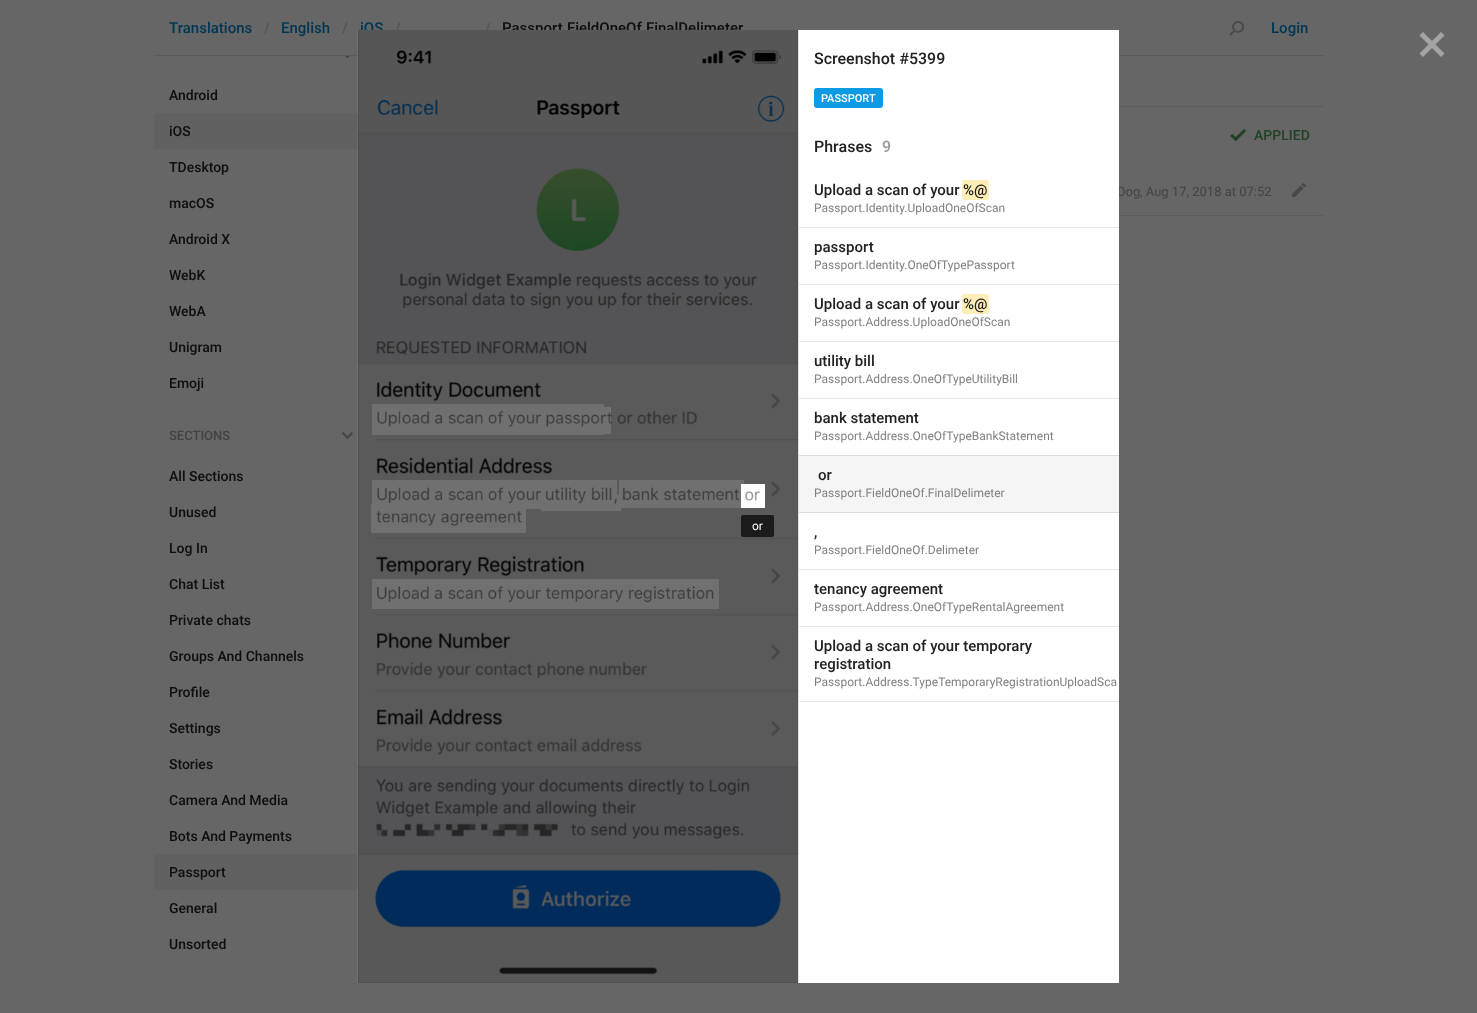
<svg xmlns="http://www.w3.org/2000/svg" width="1477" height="1013">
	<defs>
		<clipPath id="clip1"><rect x="710" y="107" width="614" height="110" /></clipPath>
	</defs>
	<rect width="100%" height="100%" fill="#666666" />
	<path d="M347.5 58L342 52.5L343.5 51L349 57Z" fill="#434343" />
	<path d="M347.5 58L346 57L351.5 51L353 52.5Z" fill="#434343" />
	<rect x="342" y="51" width="11" height="5" fill="#666666" />
	<rect x="154" y="55" width="1170" height="1" fill="#5A5A5A" />
	<text x="169" y="33" font-family="Roboto" font-size="15" font-weight="500" fill="#003652">Translations</text>
	<text x="264" y="33" font-family="Roboto" font-size="15" font-weight="500" fill="#555555">/</text>
	<text x="281" y="33" font-family="Roboto" font-size="15" font-weight="500" fill="#003652">English</text>
	<text x="342" y="33" font-family="Roboto" font-size="15" font-weight="500" fill="#555555">/</text>
	<text x="360" y="33" font-family="Roboto" font-size="15" font-weight="500" fill="#003652">iOS</text>
	<g font-family="Roboto" font-size="15" font-weight="500" fill="#555555">
		<text x="395" y="33">/</text>
		<text x="485" y="33">/</text>
	</g>
	<text x="502" y="33" font-family="Roboto" font-size="15" font-weight="500" fill="#0E0E0E">Passport.FieldOneOf.FinalDelimeter</text>
	<image x="1229" y="21" width="15" height="15" href="assets/img1.png" />
	<text x="1271" y="33" font-family="Roboto" font-size="15" font-weight="500" fill="#003652">Login</text>
	<text x="169" y="100" font-family="Roboto" font-size="14" font-weight="500" fill="#0E0E0E">Android</text>
	<rect x="154" y="113" width="205" height="36" fill="#616161" />
	<g font-family="Roboto" font-size="14" font-weight="500" fill="#0E0E0E">
		<text x="169" y="136">iOS</text>
		<text x="169" y="172">TDesktop</text>
		<text x="169" y="208">macOS</text>
		<text x="169" y="244">Android X</text>
		<text x="169" y="280">WebK</text>
		<text x="169" y="316">WebA</text>
		<text x="169" y="352">Unigram</text>
		<text x="169" y="388">Emoji</text>
	</g>
	<text x="169" y="440" font-family="Roboto" font-size="13" font-weight="500" fill="#434343">SECTIONS</text>
	<path d="M347.5 439L342 433.5L343.5 432L349 438Z" fill="#434343" />
	<path d="M347.5 439L346 438L351.5 432L353 433.5Z" fill="#434343" />
	<g font-family="Roboto" font-size="14" font-weight="500" fill="#0E0E0E">
		<text x="169" y="481">All Sections</text>
		<text x="169" y="517">Unused</text>
		<text x="169" y="553">Log In</text>
		<text x="169" y="589">Chat List</text>
		<text x="169" y="625">Private chats</text>
		<text x="169" y="661">Groups And Channels</text>
		<text x="169" y="697">Profile</text>
		<text x="169" y="733">Settings</text>
		<text x="169" y="769">Stories</text>
		<text x="169" y="805">Camera And Media</text>
		<text x="169" y="841">Bots And Payments</text>
	</g>
	<rect x="154" y="854" width="205" height="36" fill="#616161" />
	<g font-family="Roboto" font-size="14" font-weight="500" fill="#0E0E0E">
		<text x="169" y="877">Passport</text>
		<text x="169" y="913">General</text>
		<text x="169" y="949">Unsorted</text>
	</g>
	<rect x="797" y="106" width="527" height="1" fill="#5C5C5C" />
	<g clip-path="url(#clip1)">
		<path d="M770 215V216H1384V108H1324V215Z" fill="#5C5C5C" />
	</g>
	<image x="1230" y="129" width="16" height="13" href="assets/img2.png" />
	<text x="1254" y="140" font-family="Roboto" font-size="14" font-weight="500" fill="#204223">APPLIED</text>
	<g font-family="Roboto" font-size="13" fill="#434343">
		<text x="1117" y="196">Dog</text>
		<text x="1140" y="196">, Aug 17, 2018 at 07:52</text>
	</g>
	<image x="1292" y="183" width="14" height="14" href="assets/img3.png" />
	<path d="M1423 32L1444.5 53.5L1441 57L1419.5 35.5Z" fill="#A3A3A3" />
	<path d="M1419.5 53.5L1441 32L1444.5 35.5L1423 57Z" fill="#A3A3A3" />
	<image x="357" y="30" width="441" height="953" href="assets/img4.png" />
	<rect x="358" y="30" width="440" height="953" fill="#000000" fill-opacity="0.2" />
	<image x="372" y="404" width="232" height="31" href="assets/img5.png" />
	<image x="546" y="407" width="65" height="27" href="assets/img6.png" />
	<image x="372" y="480" width="245" height="29" href="assets/img7.png" />
	<image x="619" y="480" width="125" height="28" href="assets/img8.png" />
	<image x="541" y="487" width="76" height="24" href="assets/img9.png" />
	<image x="371" y="504" width="155" height="29" href="assets/img10.png" />
	<image x="613" y="495" width="8" height="16" href="assets/img11.png" />
	<image x="372" y="579" width="347" height="30" href="assets/img13.png" />
	<rect x="358" y="30" width="440" height="953" fill="#000000" fill-opacity="0.56" />
	<image x="741" y="484" width="24" height="24" href="assets/img12.png" />
	<rect x="741" y="515" width="33" height="22" rx="2" fill="#1B1B1B" />
	<text x="752" y="530" font-family="Roboto" font-size="12" fill="#FFFFFF">or</text>
	<rect x="799" y="30" width="320" height="953" fill="#FFFFFF" />
	<rect x="798" y="30" width="1" height="953" fill="#E0E0E0" />
	<text x="814" y="64" font-family="Roboto" font-size="16" font-weight="500" fill="#222222">Screenshot #5399</text>
	<rect x="814" y="88" width="69" height="20" rx="3" fill="#0F9AE4" />
	<text x="821" y="102" font-family="Roboto" font-size="11" font-weight="500" fill="#FFFFFF">PASSPORT</text>
	<text x="814" y="152" font-family="Roboto" font-size="16" font-weight="500" fill="#222222">Phrases</text>
	<text x="882" y="152" font-family="Roboto" font-size="16" font-weight="500" fill="#999999">9</text>
	<rect x="799" y="227" width="320" height="1" fill="#E7E7E7" />
	<text x="814" y="195" font-family="Roboto" font-size="15" font-weight="500" fill="#222222">Upload a scan of your</text>
	<rect x="962.5" y="180.5" width="26" height="19" rx="1.5" fill="none" stroke="#FFEEB8" />
	<rect x="963" y="181" width="25" height="18" rx="1" fill="#FFEEB8" />
	<text x="963" y="195" font-family="Roboto" font-size="15" font-weight="500" fill="#222222">%@</text>
	<text x="814" y="212" font-family="Roboto" font-size="12" fill="#808080">Passport.Identity.UploadOneOfScan</text>
	<rect x="799" y="284" width="320" height="1" fill="#E7E7E7" />
	<text x="814" y="252" font-family="Roboto" font-size="15" font-weight="500" fill="#222222">passport</text>
	<text x="814" y="269" font-family="Roboto" font-size="12" fill="#808080">Passport.Identity.OneOfTypePassport</text>
	<rect x="799" y="341" width="320" height="1" fill="#E7E7E7" />
	<text x="814" y="309" font-family="Roboto" font-size="15" font-weight="500" fill="#222222">Upload a scan of your</text>
	<rect x="962.5" y="294.5" width="26" height="19" rx="1.5" fill="none" stroke="#FFEEB8" />
	<rect x="963" y="295" width="25" height="18" rx="1" fill="#FFEEB8" />
	<text x="963" y="309" font-family="Roboto" font-size="15" font-weight="500" fill="#222222">%@</text>
	<text x="814" y="326" font-family="Roboto" font-size="12" fill="#808080">Passport.Address.UploadOneOfScan</text>
	<rect x="799" y="398" width="320" height="1" fill="#E7E7E7" />
	<text x="814" y="366" font-family="Roboto" font-size="15" font-weight="500" fill="#222222">utility bill</text>
	<text x="814" y="383" font-family="Roboto" font-size="12" fill="#808080">Passport.Address.OneOfTypeUtilityBill</text>
	<text x="814" y="423" font-family="Roboto" font-size="15" font-weight="500" fill="#222222">bank statement</text>
	<text x="814" y="440" font-family="Roboto" font-size="12" fill="#808080">Passport.Address.OneOfTypeBankStatement</text>
	<rect x="799" y="456" width="320" height="56" fill="#F5F5F5" />
	<rect x="799" y="455" width="320" height="1" fill="#DEDEDE" />
	<rect x="799" y="512" width="320" height="1" fill="#DEDEDE" />
	<text x="818" y="480" font-family="Roboto" font-size="15" font-weight="500" fill="#222222">or</text>
	<text x="814" y="497" font-family="Roboto" font-size="12" fill="#808080">Passport.FieldOneOf.FinalDelimeter</text>
	<rect x="799" y="569" width="320" height="1" fill="#E7E7E7" />
	<text x="814" y="537" font-family="Roboto" font-size="15" font-weight="500" fill="#222222">,</text>
	<text x="814" y="554" font-family="Roboto" font-size="12" fill="#808080">Passport.FieldOneOf.Delimeter</text>
	<rect x="799" y="626" width="320" height="1" fill="#E7E7E7" />
	<text x="814" y="594" font-family="Roboto" font-size="15" font-weight="500" fill="#222222">tenancy agreement</text>
	<text x="814" y="611" font-family="Roboto" font-size="12" fill="#808080">Passport.Address.OneOfTypeRentalAgreement</text>
	<rect x="799" y="701" width="320" height="1" fill="#E7E7E7" />
	<g font-family="Roboto" font-size="15" font-weight="500" fill="#222222">
		<text x="814" y="651">Upload a scan of your temporary</text>
		<text x="814" y="669">registration</text>
	</g>
	<text x="814" y="686" font-family="Roboto" font-size="12" fill="#808080">Passport.Address.TypeTemporaryRegistrationUploadSca</text>
</svg>
